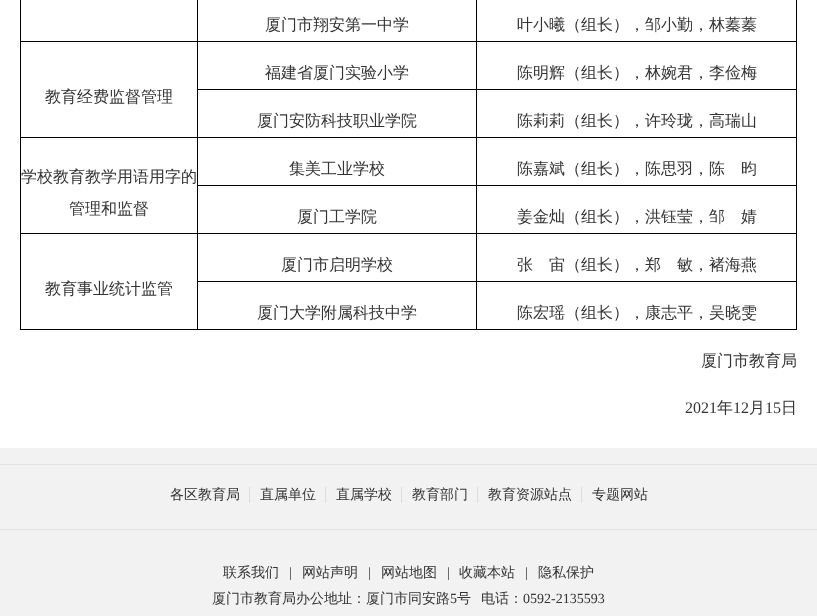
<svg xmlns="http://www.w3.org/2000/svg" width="817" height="616">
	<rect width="100%" height="100%" fill="#F2F2F2" />
	<rect x="0" y="0" width="817" height="448" fill="#FFFFFF" />
	<rect x="796" y="0" width="1" height="330" fill="#000000" />
	<rect x="20" y="329" width="777" height="1" fill="#000000" />
	<rect x="20" y="0" width="1" height="330" fill="#000000" />
	<rect x="476" y="41" width="321" height="1" fill="#000000" />
	<rect x="476" y="89" width="321" height="1" fill="#000000" />
	<rect x="476" y="137" width="321" height="1" fill="#000000" />
	<rect x="476" y="185" width="321" height="1" fill="#000000" />
	<rect x="476" y="233" width="321" height="1" fill="#000000" />
	<rect x="476" y="281" width="321" height="1" fill="#000000" />
	<rect x="476" y="281" width="1" height="49" fill="#000000" />
	<rect x="197" y="281" width="280" height="1" fill="#000000" />
	<rect x="476" y="233" width="1" height="49" fill="#000000" />
	<rect x="197" y="233" width="280" height="1" fill="#000000" />
	<rect x="476" y="185" width="1" height="49" fill="#000000" />
	<rect x="197" y="185" width="280" height="1" fill="#000000" />
	<rect x="476" y="137" width="1" height="49" fill="#000000" />
	<rect x="197" y="137" width="280" height="1" fill="#000000" />
	<rect x="476" y="89" width="1" height="49" fill="#000000" />
	<rect x="197" y="89" width="280" height="1" fill="#000000" />
	<rect x="476" y="41" width="1" height="49" fill="#000000" />
	<rect x="197" y="41" width="280" height="1" fill="#000000" />
	<rect x="197" y="281" width="1" height="49" fill="#000000" />
	<rect x="197" y="233" width="1" height="49" fill="#000000" />
	<rect x="20" y="233" width="178" height="1" fill="#000000" />
	<rect x="197" y="185" width="1" height="49" fill="#000000" />
	<rect x="197" y="137" width="1" height="49" fill="#000000" />
	<rect x="20" y="137" width="178" height="1" fill="#000000" />
	<rect x="197" y="89" width="1" height="49" fill="#000000" />
	<rect x="197" y="41" width="1" height="49" fill="#000000" />
	<rect x="20" y="41" width="178" height="1" fill="#000000" />
	<rect x="197" y="0" width="1" height="42" fill="#000000" />
	<text x="265" y="30" font-family="WenQuanYi Zen Hei" font-size="16" font-weight="500" fill="#333333">厦门市翔安第一中学</text>
	<rect x="476" y="0" width="1" height="42" fill="#000000" />
	<g font-family="WenQuanYi Zen Hei" font-size="16" font-weight="500" fill="#333333">
		<text x="517" y="30">叶小曦（组长），邹小勤，林蓁蓁</text>
		<text x="265" y="78">福建省厦门实验小学</text>
		<text x="517" y="78">陈明辉（组长），林婉君，李俭梅</text>
		<text x="45" y="102">教育经费监督管理</text>
		<text x="257" y="126">厦门安防科技职业学院</text>
		<text x="517" y="126">陈莉莉（组长），许玲珑，高瑞山</text>
		<text x="21" y="182">学校教育教学用语用字的</text>
		<text x="69" y="214">管理和监督</text>
		<text x="289" y="174">集美工业学校</text>
		<text x="517" y="174">陈嘉斌（组长），陈思羽，陈　昀</text>
		<text x="297" y="222">厦门工学院</text>
		<text x="517" y="222">姜金灿（组长），洪钰莹，邹　婧</text>
		<text x="281" y="270">厦门市启明学校</text>
		<text x="517" y="270">张　宙（组长），郑　敏，褚海燕</text>
		<text x="45" y="294">教育事业统计监管</text>
		<text x="257" y="318">厦门大学附属科技中学</text>
		<text x="517" y="318">陈宏瑶（组长），康志平，吴晓雯</text>
		<text x="701" y="366">厦门市教育局</text>
	</g>
	<text x="685" y="413" font-family="Liberation Serif" font-size="16" fill="#333333">2021</text>
	<text x="717" y="413" font-family="WenQuanYi Zen Hei" font-size="16" font-weight="500" fill="#333333">年</text>
	<text x="733" y="413" font-family="Liberation Serif" font-size="16" fill="#333333">12</text>
	<text x="749" y="413" font-family="WenQuanYi Zen Hei" font-size="16" font-weight="500" fill="#333333">月</text>
	<text x="765" y="413" font-family="Liberation Serif" font-size="16" fill="#333333">15</text>
	<text x="781" y="413" font-family="WenQuanYi Zen Hei" font-size="16" font-weight="500" fill="#333333">日</text>
	<rect x="0" y="464" width="817" height="1" fill="#E2E2E2" />
	<rect x="0" y="529" width="817" height="1" fill="#E2E2E2" />
	<text x="170" y="499" font-family="WenQuanYi Zen Hei" font-size="14" font-weight="500" fill="#333333">各区教育局</text>
	<rect x="249" y="487" width="1" height="16" fill="#DDDDDD" />
	<text x="260" y="499" font-family="WenQuanYi Zen Hei" font-size="14" font-weight="500" fill="#333333">直属单位</text>
	<rect x="325" y="487" width="1" height="16" fill="#DDDDDD" />
	<text x="336" y="499" font-family="WenQuanYi Zen Hei" font-size="14" font-weight="500" fill="#333333">直属学校</text>
	<rect x="401" y="487" width="1" height="16" fill="#DDDDDD" />
	<text x="412" y="499" font-family="WenQuanYi Zen Hei" font-size="14" font-weight="500" fill="#333333">教育部门</text>
	<rect x="477" y="487" width="1" height="16" fill="#DDDDDD" />
	<text x="488" y="499" font-family="WenQuanYi Zen Hei" font-size="14" font-weight="500" fill="#333333">教育资源站点</text>
	<rect x="581" y="487" width="1" height="16" fill="#DDDDDD" />
	<g font-family="WenQuanYi Zen Hei" font-size="14" font-weight="500" fill="#333333">
		<text x="592" y="499">专题网站</text>
		<text x="223" y="577">联系我们</text>
	</g>
	<text x="289" y="577" font-family="Liberation Serif" font-size="14" fill="#333333">|</text>
	<text x="302" y="577" font-family="WenQuanYi Zen Hei" font-size="14" font-weight="500" fill="#333333">网站声明</text>
	<text x="368" y="577" font-family="Liberation Serif" font-size="14" fill="#333333">|</text>
	<text x="381" y="577" font-family="WenQuanYi Zen Hei" font-size="14" font-weight="500" fill="#333333">网站地图</text>
	<text x="447" y="577" font-family="Liberation Serif" font-size="14" fill="#333333">|</text>
	<text x="459" y="577" font-family="WenQuanYi Zen Hei" font-size="14" font-weight="500" fill="#333333">收藏本站</text>
	<text x="525" y="577" font-family="Liberation Serif" font-size="14" fill="#333333">|</text>
	<g font-family="WenQuanYi Zen Hei" font-size="14" font-weight="500" fill="#333333">
		<text x="538" y="577">隐私保护</text>
		<text x="212" y="603">厦门市教育局办公地址：厦门市同安路</text>
	</g>
	<text x="450" y="603" font-family="Liberation Serif" font-size="14" fill="#333333">5</text>
	<g font-family="WenQuanYi Zen Hei" font-size="14" font-weight="500" fill="#333333">
		<text x="457" y="603">号</text>
		<text x="481" y="603">电话：</text>
	</g>
	<text x="523" y="603" font-family="Liberation Serif" font-size="14" fill="#333333">0592-2135593</text>
</svg>
